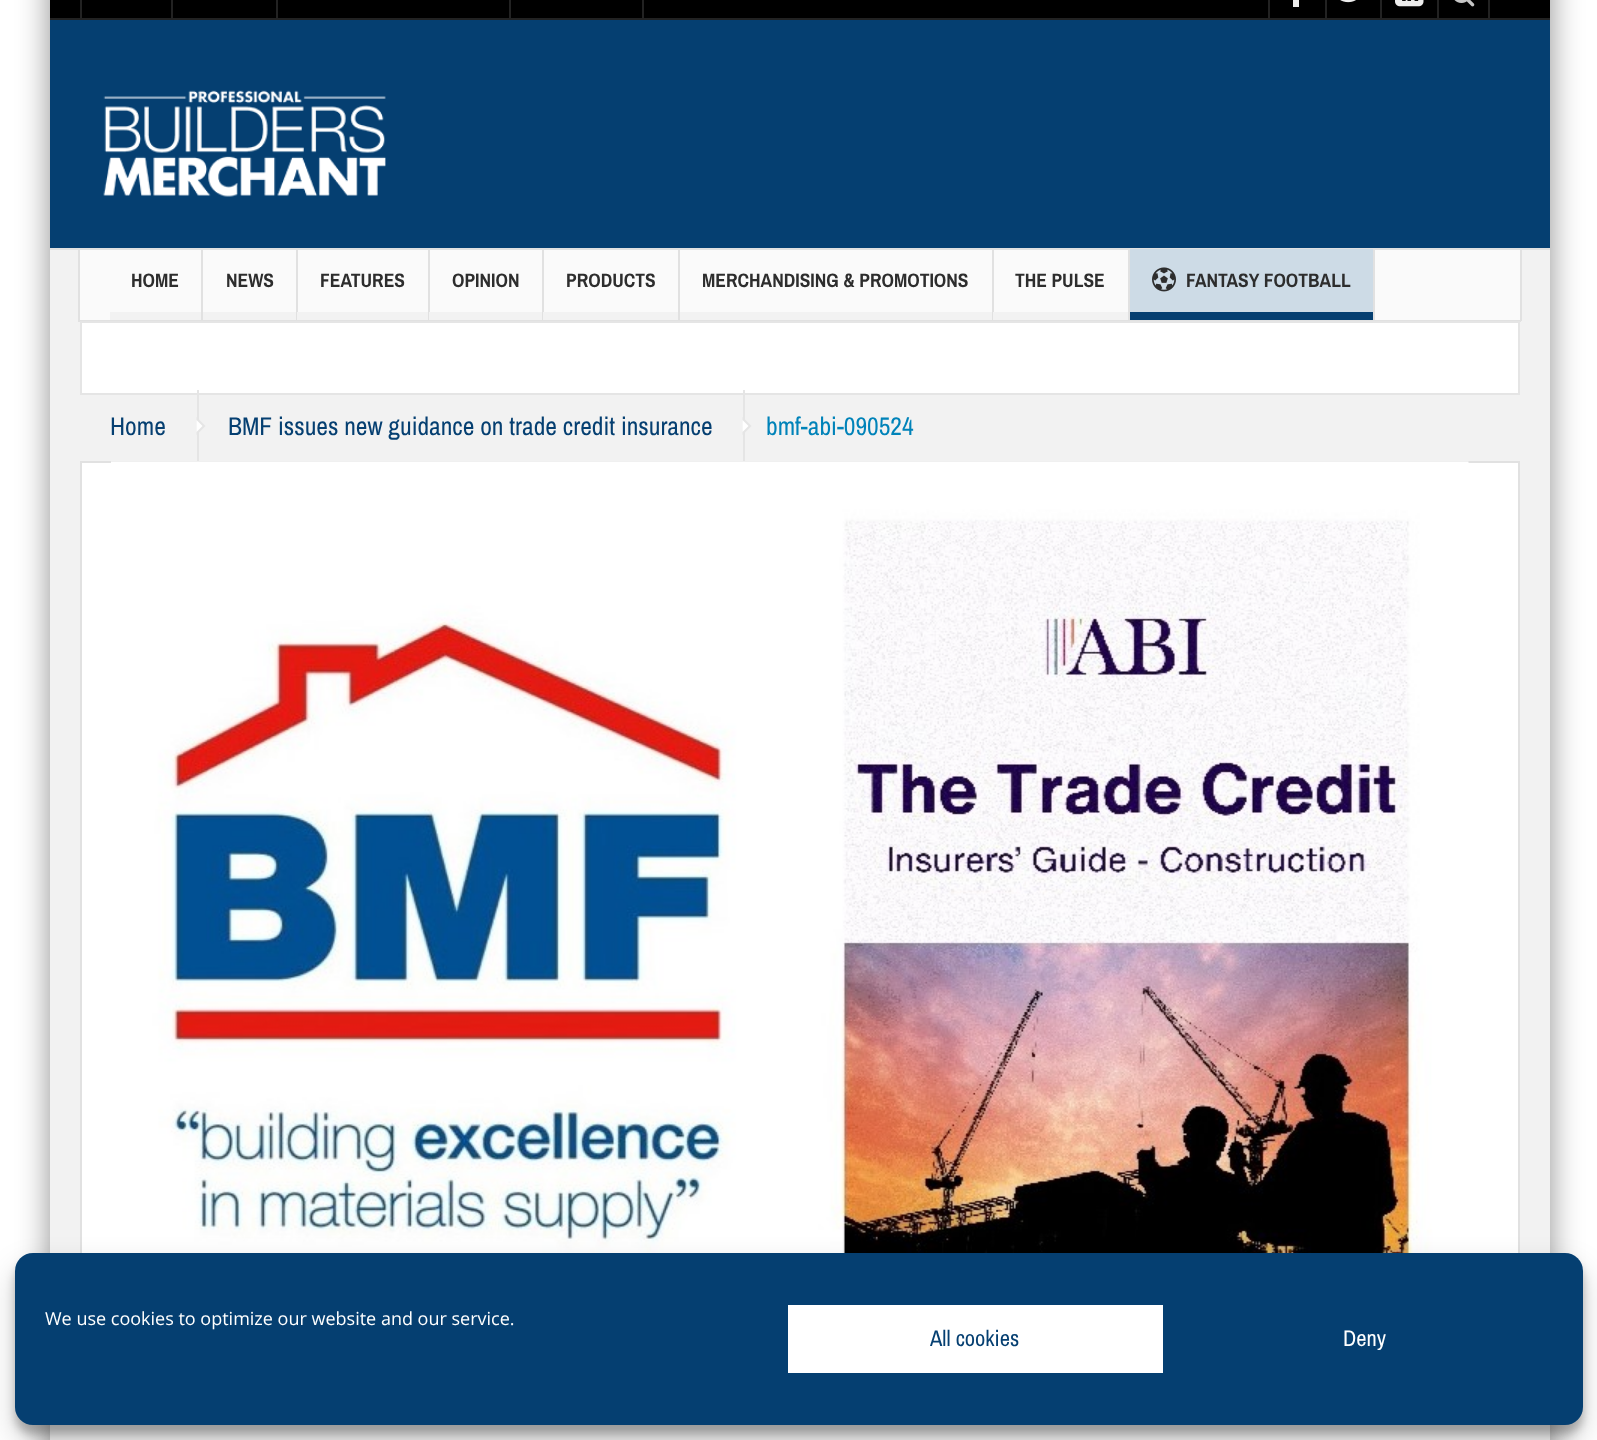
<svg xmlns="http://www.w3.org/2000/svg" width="1597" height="1440">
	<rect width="100%" height="100%" fill="#FFFFFF" />
	<rect x="50" y="-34" width="1500" height="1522" fill="#000000" fill-opacity="0.44" filter="blur(16px)" />
	<rect x="50" y="250" width="1500" height="1190" fill="#F2F2F2" />
	<rect x="50" y="0" width="1500" height="18" fill="#000000" />
	<rect x="50" y="18" width="1500" height="2" fill="#222222" />
	<rect x="171" y="0" width="2" height="18" fill="#222222" />
	<rect x="80" y="0" width="2" height="18" fill="#222222" />
	<rect x="276" y="0" width="2" height="18" fill="#222222" />
	<rect x="509" y="0" width="2" height="18" fill="#222222" />
	<rect x="642" y="0" width="2" height="18" fill="#222222" />
	<rect x="1268" y="0" width="2" height="18" fill="#222222" />
	<rect x="1293" y="0" width="6" height="7" fill="#EDEDED" />
	<rect x="1325" y="0" width="2" height="18" fill="#222222" />
	<image x="1340" y="0" width="16" height="3" href="assets/img1.png" />
	<rect x="1380" y="0" width="2" height="18" fill="#222222" />
	<image x="1395" y="0" width="29" height="7" href="assets/img2.png" />
	<rect x="1488" y="0" width="2" height="18" fill="#222222" />
	<rect x="1437" y="0" width="2" height="18" fill="#222222" />
	<image x="1454" y="0" width="21" height="7" href="assets/img3.png" />
	<rect x="50" y="20" width="1500" height="228" fill="#053F71" />
	<rect x="1520" y="249" width="2" height="72" fill="#E1E1E1" />
	<rect x="78" y="320" width="1443" height="2" fill="#E1E1E1" />
	<rect x="78" y="249" width="2" height="72" fill="#E1E1E1" />
	<rect x="50" y="248" width="1500" height="2" fill="#E1E1E1" />
	<image x="103" y="90" width="283" height="107" href="assets/img4.png" />
	<rect x="80" y="250" width="1440" height="70" fill="#FAFAFA" />
	<rect x="201" y="249" width="2" height="71" fill="#E1E1E1" />
	<text x="131" y="287" font-family="Archivo Narrow" font-size="19.5" font-weight="700" fill="#2D2D2D">HOME</text>
	<rect x="110" y="312" width="91" height="8" fill="#F2F2F2" />
	<rect x="296" y="249" width="2" height="71" fill="#E1E1E1" />
	<text x="226" y="287" font-family="Archivo Narrow" font-size="19.5" font-weight="700" fill="#2D2D2D">NEWS</text>
	<rect x="203" y="312" width="93" height="8" fill="#F2F2F2" />
	<rect x="428" y="249" width="2" height="71" fill="#E1E1E1" />
	<text x="320" y="287" font-family="Archivo Narrow" font-size="19.5" font-weight="700" fill="#2D2D2D">FEATURES</text>
	<rect x="297" y="312" width="131" height="8" fill="#F2F2F2" />
	<rect x="542" y="249" width="2" height="71" fill="#E1E1E1" />
	<text x="452" y="287" font-family="Archivo Narrow" font-size="19.5" font-weight="700" fill="#2D2D2D">OPINION</text>
	<rect x="429" y="312" width="113" height="8" fill="#F2F2F2" />
	<rect x="678" y="249" width="2" height="71" fill="#E1E1E1" />
	<text x="566" y="287" font-family="Archivo Narrow" font-size="19.5" font-weight="700" fill="#2D2D2D">PRODUCTS</text>
	<rect x="543" y="312" width="135" height="8" fill="#F2F2F2" />
	<rect x="992" y="249" width="2" height="71" fill="#E1E1E1" />
	<text x="702" y="287" font-family="Archivo Narrow" font-size="19.5" font-weight="700" fill="#2D2D2D">MERCHANDISING &amp; PROMOTIONS</text>
	<rect x="680" y="312" width="312" height="8" fill="#F2F2F2" />
	<rect x="1128" y="249" width="2" height="71" fill="#E1E1E1" />
	<text x="1015" y="287" font-family="Archivo Narrow" font-size="19.5" font-weight="700" fill="#2D2D2D">THE PULSE</text>
	<rect x="993" y="312" width="135" height="8" fill="#F2F2F2" />
	<rect x="1373" y="249" width="2" height="71" fill="#E1E1E1" />
	<rect x="1130" y="249" width="243" height="63" fill="#CDDBE6" />
	<image x="1152" y="267" width="24" height="25" href="assets/img5.png" />
	<text x="1186" y="287" font-family="Archivo Narrow" font-size="19.5" font-weight="700" fill="#2D2D2D">FANTASY FOOTBALL</text>
	<rect x="1130" y="312" width="243" height="8" fill="#053F71" />
	<rect x="81" y="322" width="1438" height="72" fill="#FFFFFF" stroke="#E5E5E5" stroke-width="2" />
	<rect x="197" y="390" width="2" height="71" fill="#E5E5E5" />
	<text x="110" y="435" font-family="Archivo Narrow" font-size="25.5" fill="#053F71">Home</text>
	<path d="M196.5 435V417L205.5 426Z" fill="#E5E5E5" />
	<path d="M196.5 432V420L202.5 426Z" fill="#FFFFFF" />
	<rect x="743" y="390" width="2" height="71" fill="#E5E5E5" />
	<text x="228" y="435" font-family="Archivo Narrow" font-size="25.5" fill="#053F71">BMF issues new guidance on trade credit insurance</text>
	<path d="M742.5 435V417L751.5 426Z" fill="#E5E5E5" />
	<path d="M742.5 432V420L748.5 426Z" fill="#FFFFFF" />
	<text x="766" y="435" font-family="Archivo Narrow" font-size="25.5" fill="#0083B9">bmf-abi-090524</text>
	<rect x="82" y="463" width="1436" height="790" fill="#FFFFFF" />
	<rect x="81" y="462" width="1438" height="961" fill="none" stroke="#E1E1E1" stroke-width="2" />
	<image x="111" y="461" width="1358" height="792" href="assets/img6.png" />
	<rect x="15" y="1262" width="1568" height="172" rx="18" fill="#000000" fill-opacity="0.23" filter="blur(4.5px)" />
	<rect x="15" y="1268" width="1568" height="172" rx="18" fill="#000000" fill-opacity="0.19" filter="blur(15px)" />
	<rect x="15" y="1253" width="1568" height="172" rx="18" fill="#053F71" />
	<text x="45" y="1325" font-family="Open Sans" font-size="18" fill="#FFFFFF">We use cookies to optimize our website and our service.</text>
	<rect x="788" y="1305" width="375" height="68" fill="#FFFFFF" />
	<text x="930" y="1346" font-family="Archivo Narrow" font-size="22.5" fill="#053F71">All cookies</text>
	<text x="1343" y="1346" font-family="Archivo Narrow" font-size="22.5" fill="#FFFFFF">Deny</text>
</svg>
